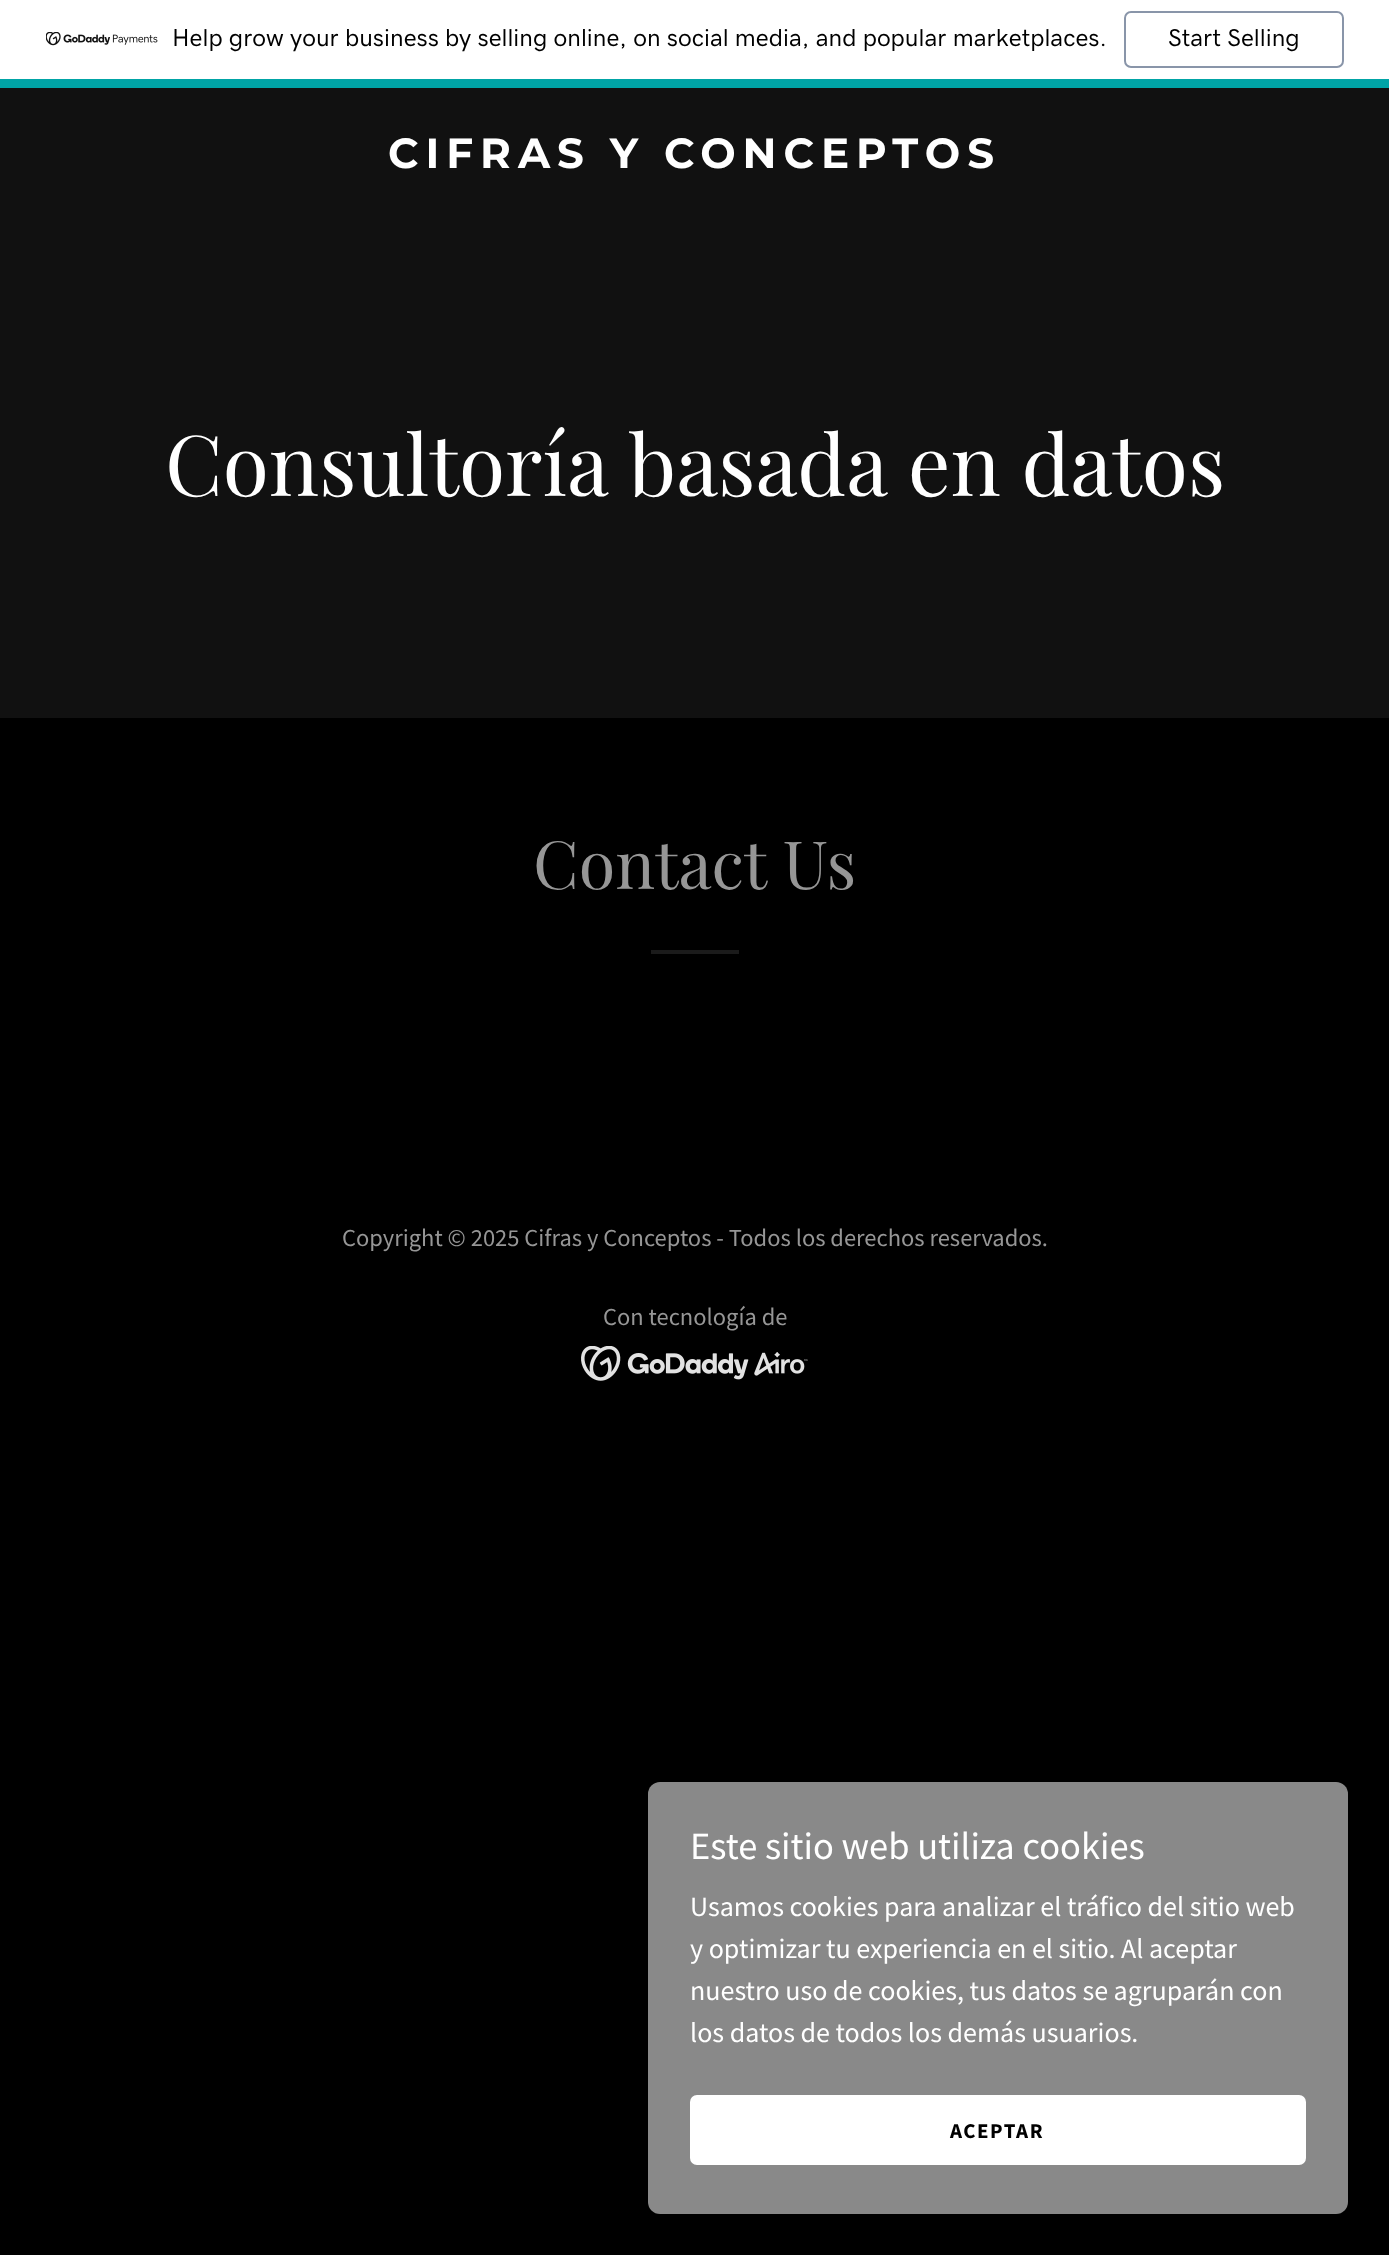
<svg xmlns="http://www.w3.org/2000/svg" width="1389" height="2255">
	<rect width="100%" height="100%" fill="#000000" />
	<rect x="0" y="0" width="1389" height="79" fill="#FFFFFF" />
	<rect x="0" y="79" width="1389" height="9" fill="#00A4A6" />
	<image x="46" y="32" width="112" height="14" href="assets/img1.png" />
	<text x="172" y="46" font-family="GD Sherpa" font-size="24.5" font-weight="500" fill="#000000">Help grow your business by selling online, on social media, and popular marketplaces.</text>
	<rect x="1125" y="12" width="218" height="55" rx="6" fill="none" stroke="#8995A9" stroke-width="2" />
	<text x="1168" y="46" font-family="GD Sherpa" font-size="24.5" font-weight="500" fill="#000000">Start Selling</text>
	<rect x="0" y="88" width="1389" height="630" fill="#111111" />
	<text x="388" y="168" font-family="Montserrat" font-size="42" font-weight="700" letter-spacing="7" fill="#FFFFFF">CIFRAS Y CONCEPTOS</text>
	<text x="165" y="496" font-family="Playfair Display" font-size="84" fill="#FFFFFF">Consultoría basada en datos</text>
	<text x="533" y="889" font-family="Playfair Display" font-size="66.5" fill="#969696">Contact Us</text>
	<rect x="651" y="950" width="88" height="4" fill="#1B1B1B" />
	<g font-family="Source Sans Pro" font-size="24.5" fill="#969696">
		<text x="342" y="1246">Copyright © 2025 Cifras y Conceptos - Todos los derechos reservados.</text>
		<text x="603" y="1325">Con tecnología de</text>
	</g>
	<image x="581" y="1346" width="227" height="35" href="assets/img2.png" />
	<rect x="648" y="1782" width="700" height="432" rx="12" fill="#898989" />
	<text x="690" y="1859" font-family="Source Sans Pro" font-size="38.5" fill="#FFFFFF">Este sitio web utiliza cookies</text>
	<g font-family="Source Sans Pro" font-size="28" fill="#FFFFFF">
		<text x="690" y="1916">Usamos cookies para analizar el tráfico del sitio web</text>
		<text x="690" y="1958">y optimizar tu experiencia en el sitio. Al aceptar</text>
		<text x="690" y="2000">nuestro uso de cookies, tus datos se agruparán con</text>
		<text x="690" y="2042">los datos de todos los demás usuarios.</text>
	</g>
	<rect x="690" y="2095" width="616" height="70" rx="7" fill="#FFFFFF" />
	<text x="950" y="2138" font-family="Source Sans Pro" font-size="21" font-weight="700" letter-spacing="1.5" fill="#000000">ACEPTAR</text>
</svg>
